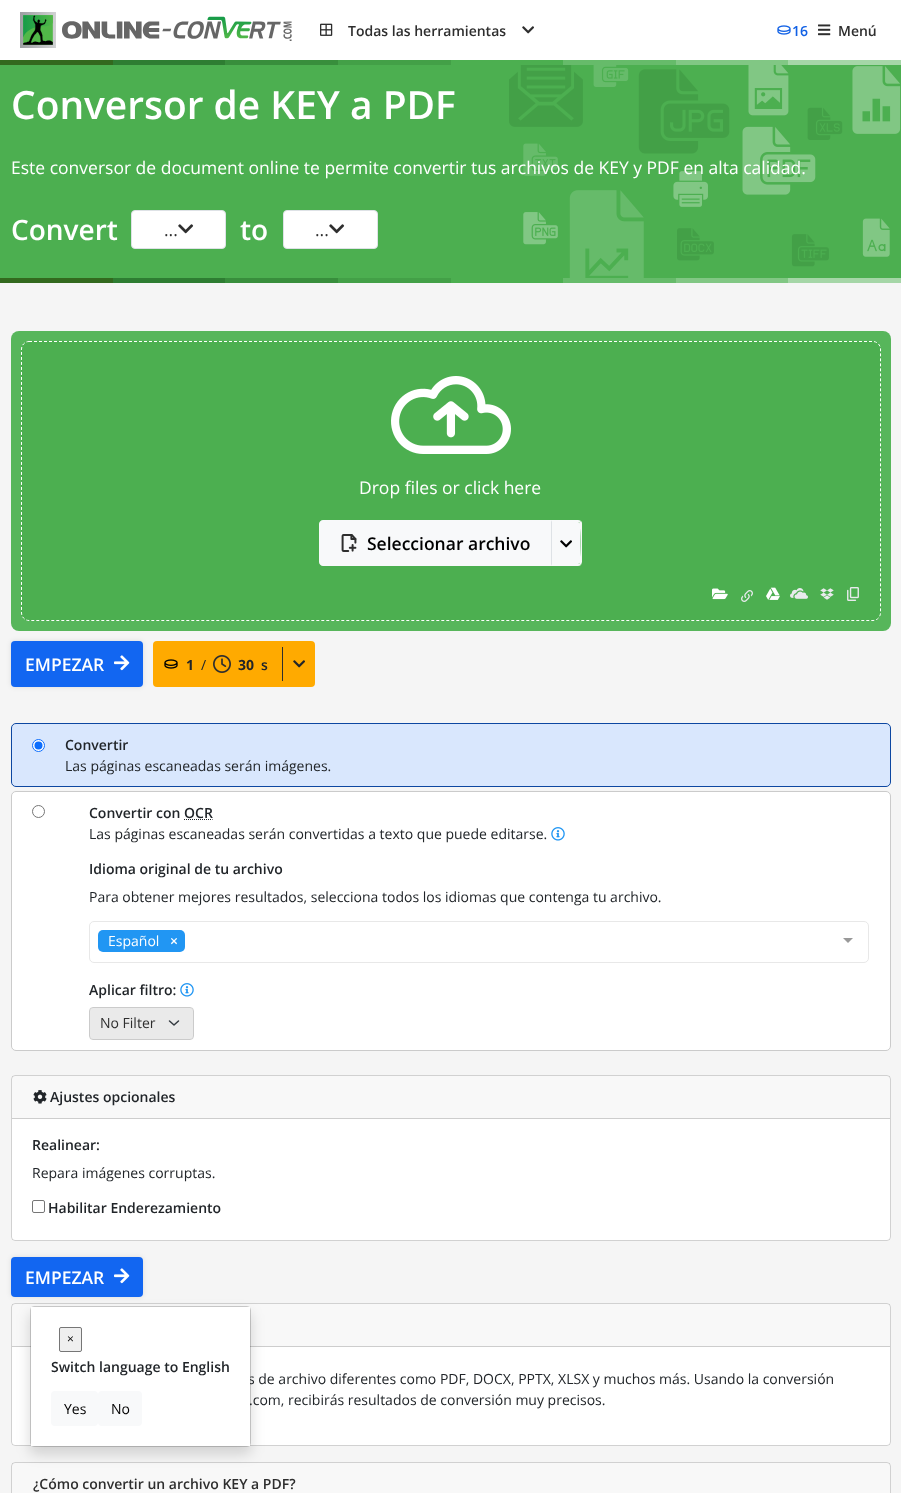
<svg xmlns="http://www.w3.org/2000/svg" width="901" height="1493">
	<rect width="100%" height="100%" fill="#F5F5F5" />
	<rect x="0" y="0" width="901" height="60" fill="#FFFFFF" />
	<image x="20" y="12" width="272" height="36" href="assets/img1.png" />
	<image x="320" y="23" width="13" height="13" href="assets/img2.png" />
	<text x="348" y="36" font-family="Open Sans" font-size="14" font-weight="600" fill="#2E2E2E">Todas las herramientas</text>
	<image x="522" y="26" width="12" height="8" href="assets/img3.png" />
	<image x="777" y="25" width="14" height="10" href="assets/img4.png" />
	<text x="792" y="36" font-family="Open Sans" font-size="14" font-weight="600" fill="#1161E5">16</text>
	<image x="818" y="24" width="13" height="12" href="assets/img5.png" />
	<text x="838" y="36" font-family="Open Sans" font-size="14" font-weight="600" fill="#2E2E2E">Menú</text>
	<rect x="0" y="60" width="113" height="5" fill="#33691E" />
	<rect x="113" y="60" width="112" height="5" fill="#2E7D32" />
	<rect x="225" y="60" width="113" height="5" fill="#388E3C" />
	<rect x="338" y="60" width="113" height="5" fill="#43A047" />
	<rect x="451" y="60" width="112" height="5" fill="#4CAF50" />
	<rect x="563" y="60" width="113" height="5" fill="#66BB6A" />
	<rect x="676" y="60" width="112" height="5" fill="#81C784" />
	<rect x="788" y="60" width="113" height="5" fill="#A5D6A7" />
	<rect x="0" y="65" width="901" height="213" fill="#4CAF50" />
	<image x="509" y="65" width="392" height="213" href="assets/img6.png" />
	<text x="11" y="119" font-family="Open Sans" font-size="38.9" font-weight="600" fill="#FFFFFF">Conversor de KEY a PDF</text>
	<text x="11" y="174" font-family="Open Sans" font-size="17.5" fill="#FFFFFF">Este conversor de document online te permite convertir tus archivos de KEY y PDF en alta calidad.</text>
	<text x="11" y="240" font-family="Open Sans" font-size="28" font-weight="600" fill="#FFFFFF">Convert</text>
	<rect x="131.5" y="210.5" width="94" height="38" rx="3.5" fill="#FFFFFF" stroke="#DEE2E6" />
	<image x="178" y="224" width="16" height="10" href="assets/img7.png" />
	<text x="164" y="236" font-family="Open Sans" font-size="17.5" fill="#2E2E2E">...</text>
	<text x="240" y="240" font-family="Open Sans" font-size="28" font-weight="600" fill="#FFFFFF">to</text>
	<rect x="283.5" y="210.5" width="94" height="38" rx="3.5" fill="#FFFFFF" stroke="#DEE2E6" />
	<image x="329" y="224" width="16" height="10" href="assets/img7.png" />
	<text x="315" y="236" font-family="Open Sans" font-size="17.5" fill="#2E2E2E">...</text>
	<rect x="0" y="278" width="113" height="5" fill="#33691E" />
	<rect x="113" y="278" width="112" height="5" fill="#2E7D32" />
	<rect x="225" y="278" width="113" height="5" fill="#388E3C" />
	<rect x="338" y="278" width="113" height="5" fill="#43A047" />
	<rect x="451" y="278" width="112" height="5" fill="#4CAF50" />
	<rect x="563" y="278" width="113" height="5" fill="#66BB6A" />
	<rect x="676" y="278" width="112" height="5" fill="#81C784" />
	<rect x="788" y="278" width="113" height="5" fill="#A5D6A7" />
	<rect x="11" y="331" width="880" height="300" rx="8" fill="#57B65B" />
	<rect x="21" y="341" width="860" height="280" rx="8" fill="#4CAF50" />
	<path d="M29 341.5H873C877 341.5 880.5 345 880.5 349V613C880.5 617 877 620.5 873 620.5H29C25 620.5 21.5 617 21.5 613V349C21.5 345 25 341.5 29 341.5Z" fill="none" stroke="#FFFFFF" stroke-dasharray="3 2" />
	<image x="391" y="376" width="120" height="78" href="assets/img8.png" />
	<text x="359" y="494" font-family="Open Sans" font-size="17.5" fill="#FFFFFF">Drop files or click here</text>
	<path d="M323 521H552V565H323C321.5 565 320 563.5 320 562V524C320 522.5 321.5 521 323 521Z" fill="#F8F9FA" stroke="#F8F9FA" stroke-width="2" />
	<image x="341" y="534" width="16" height="18" href="assets/img9.png" />
	<text x="367" y="550" font-family="Open Sans" font-size="17.5" font-weight="600" fill="#000000">Seleccionar archivo</text>
	<path d="M552 522H578C579 522 580 523 580 524V562C580 563 579 564 578 564H552Z" fill="#F8F9FA" />
	<path d="M551 520L552 522H578L579.5 522.5L581 521C580 520.5 579 520 578 520Z" fill="#F8F9FA" />
	<path d="M582 562V524C582 523 582 522 581 521L579 523C581 524 581 562 579 563L581 565Z" fill="#F8F9FA" />
	<path d="M578 566C579 566 580 565.5 581 565L579.5 563.5L578 564H552L551 566Z" fill="#F8F9FA" />
	<path d="M551 520V566L552 564V522Z" fill="#DEE2E6" />
	<image x="560" y="540" width="12" height="8" href="assets/img10.png" />
	<image x="712" y="588" width="16" height="12" href="assets/img11.png" />
	<image x="741" y="590" width="12" height="12" href="assets/img12.png" />
	<image x="766" y="587" width="14" height="13" href="assets/img13.png" />
	<image x="790" y="588" width="18" height="11" href="assets/img14.png" />
	<image x="820" y="588" width="14" height="12" href="assets/img15.png" />
	<image x="847" y="587" width="12" height="14" href="assets/img16.png" />
	<rect x="11" y="641" width="132" height="46" rx="4" fill="#000000" fill-opacity="0.1" filter="blur(2.5px)" />
	<rect x="11" y="641" width="132" height="46" rx="4" fill="#1266F1" />
	<text x="25" y="671" font-family="Open Sans" font-size="17.5" font-weight="600" fill="#FFFFFF">EMPEZAR</text>
	<image x="114" y="655" width="16" height="16" href="assets/img17.png" />
	<rect x="153" y="641" width="162" height="46" rx="4" fill="#FFAA00" />
	<image x="164" y="659" width="14" height="10" href="assets/img18.png" />
	<text x="186" y="670" font-family="Open Sans" font-size="14" font-weight="700" fill="#212529">1</text>
	<text x="201" y="670" font-family="Open Sans" font-size="14" fill="#212529">/</text>
	<image x="213" y="655" width="18" height="18" href="assets/img19.png" />
	<text x="238" y="670" font-family="Open Sans" font-size="14" font-weight="700" fill="#212529">30</text>
	<text x="261" y="670" font-family="Open Sans" font-size="14" font-weight="600" fill="#212529">s</text>
	<rect x="282" y="647" width="1" height="34" fill="#2E2E2E" />
	<image x="293" y="660" width="12" height="8" href="assets/img20.png" />
	<rect x="11.5" y="723.5" width="879" height="63" rx="4.5" fill="#D9E7FD" stroke="#0D47A1" />
	<circle cx="38.5" cy="745.5" r="6" fill="#FFFFFF" stroke="#0D6EFD" />
	<circle cx="38.5" cy="745.5" r="4" fill="#0D6EFD" />
	<text x="65" y="750" font-family="Open Sans" font-size="14" font-weight="600" fill="#212529">Convertir</text>
	<text x="65" y="771" font-family="Open Sans" font-size="14" fill="#212529">Las páginas escaneadas serán imágenes.</text>
	<rect x="11.5" y="791.5" width="879" height="259" rx="4.5" fill="#FFFFFF" stroke="#CBCBCB" />
	<circle cx="38.5" cy="811.5" r="6" fill="none" stroke="#767676" />
	<text x="89" y="818" font-family="Open Sans" font-size="14" font-weight="600" fill="#212529">Convertir con OCR</text>
	<path d="M184 819.5H212.5" fill="none" stroke="#212529" stroke-dasharray="1 1" />
	<text x="89" y="839" font-family="Open Sans" font-size="14" fill="#212529">Las páginas escaneadas serán convertidas a texto que puede editarse.</text>
	<image x="551" y="827" width="14" height="14" href="assets/img21.png" />
	<text x="89" y="874" font-family="Open Sans" font-size="14" font-weight="600" fill="#212529">Idioma original de tu archivo</text>
	<text x="89" y="902" font-family="Open Sans" font-size="14" fill="#212529">Para obtener mejores resultados, selecciona todos los idiomas que contenga tu archivo.</text>
	<rect x="89.5" y="921.5" width="779" height="41" rx="4.5" fill="none" stroke="#E8E8E8" />
	<rect x="98" y="930" width="87" height="22" rx="5" fill="#2196F3" />
	<text x="108" y="946" font-family="Open Sans" font-size="14" fill="#FFFFFF">Español</text>
	<text x="170" y="946" font-family="Open Sans" font-size="14" font-weight="600" fill="#FFFFFF">×</text>
	<path d="M843 938H853L848 943Z" fill="#999999" />
	<text x="89" y="995" font-family="Open Sans" font-size="14" font-weight="600" fill="#212529">Aplicar filtro:</text>
	<image x="180" y="983" width="14" height="14" href="assets/img21.png" />
	<rect x="90" y="1008" width="103" height="31" rx="3" fill="#EAEAEA" />
	<path d="M169.5 1021L174 1025L178.5 1021" fill="none" stroke="#343A40" stroke-width="1.5" stroke-linecap="round" stroke-linejoin="round" />
	<rect x="89.5" y="1007.5" width="104" height="32" rx="3.5" fill="none" stroke="#CBCBCB" />
	<text x="100" y="1028" font-family="Open Sans" font-size="14" fill="#2E2E2E">No Filter</text>
	<rect x="11" y="1075" width="880" height="166" rx="4" fill="#FFFFFF" />
	<rect x="11.5" y="1075.5" width="879" height="165" rx="3.5" fill="none" stroke="#000000" stroke-opacity="0.18" />
	<rect x="12" y="1076" width="878" height="42" fill="#212529" fill-opacity="0.03" />
	<rect x="12" y="1118" width="878" height="1" fill="#CDCDCD" />
	<image x="33" y="1090" width="14" height="14" href="assets/img22.png" />
	<g font-family="Open Sans" font-size="14" font-weight="600" fill="#212529">
		<text x="50" y="1102">Ajustes opcionales</text>
		<text x="32" y="1150">Realinear:</text>
	</g>
	<text x="32" y="1178" font-family="Open Sans" font-size="14" fill="#212529">Repara imágenes corruptas.</text>
	<rect x="32.5" y="1200.5" width="12" height="12" rx="1.5" fill="none" stroke="#767676" />
	<text x="48" y="1213" font-family="Open Sans" font-size="14" font-weight="600" fill="#212529">Habilitar Enderezamiento</text>
	<rect x="11" y="1257" width="132" height="40" rx="4" fill="#000000" fill-opacity="0.1" filter="blur(2.5px)" />
	<rect x="11" y="1257" width="132" height="40" rx="4" fill="#1266F1" />
	<text x="25" y="1284" font-family="Open Sans" font-size="17.5" font-weight="600" fill="#FFFFFF">EMPEZAR</text>
	<image x="114" y="1268" width="16" height="16" href="assets/img17.png" />
	<rect x="11" y="1303" width="880" height="143" rx="4" fill="#FFFFFF" />
	<rect x="11.5" y="1303.5" width="879" height="142" rx="3.5" fill="none" stroke="#000000" stroke-opacity="0.18" />
	<rect x="12" y="1304" width="878" height="42" fill="#212529" fill-opacity="0.03" />
	<rect x="12" y="1346" width="878" height="1" fill="#CDCDCD" />
	<g font-family="Open Sans" font-size="14" fill="#212529">
		<text x="248" y="1384">s de archivo diferentes como PDF, DOCX, PPTX, XLSX y muchos más. Usando la conversión</text>
		<text x="249" y="1405">.com, recibirás resultados de conversión muy precisos.</text>
	</g>
	<rect x="11" y="1462" width="880" height="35" rx="4" fill="#FFFFFF" />
	<rect x="11.5" y="1462.5" width="879" height="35" rx="3.5" fill="none" stroke="#000000" stroke-opacity="0.18" />
	<rect x="12" y="1463" width="878" height="30" fill="#212529" fill-opacity="0.03" />
	<text x="33" y="1489" font-family="Open Sans" font-size="14" font-weight="600" fill="#2E2E2E">¿Cómo convertir un archivo KEY a PDF?</text>
	<rect x="30" y="1313" width="221" height="141" rx="4" fill="#000000" fill-opacity="0.15" filter="blur(7px)" />
	<rect x="30.5" y="1306.5" width="220" height="140" rx="3.5" fill="none" stroke="#000000" stroke-opacity="0.18" />
	<rect x="31" y="1307" width="219" height="139" fill="#FFFFFF" />
	<rect x="59.5" y="1327.5" width="22" height="24" rx="1.5" fill="#EFEFEF" stroke="#767676" />
	<text x="67" y="1343" font-family="Open Sans" font-size="12" fill="#000000">×</text>
	<text x="51" y="1372" font-family="Open Sans" font-size="14" font-weight="600" fill="#212529">Switch language to English</text>
	<rect x="51" y="1391" width="47" height="35" rx="4" fill="#F8F9FA" />
	<text x="64" y="1414" font-family="Open Sans" font-size="14" fill="#000000">Yes</text>
	<rect x="98" y="1391" width="44" height="35" rx="4" fill="#F8F9FA" />
	<text x="111" y="1414" font-family="Open Sans" font-size="14" fill="#000000">No</text>
</svg>
